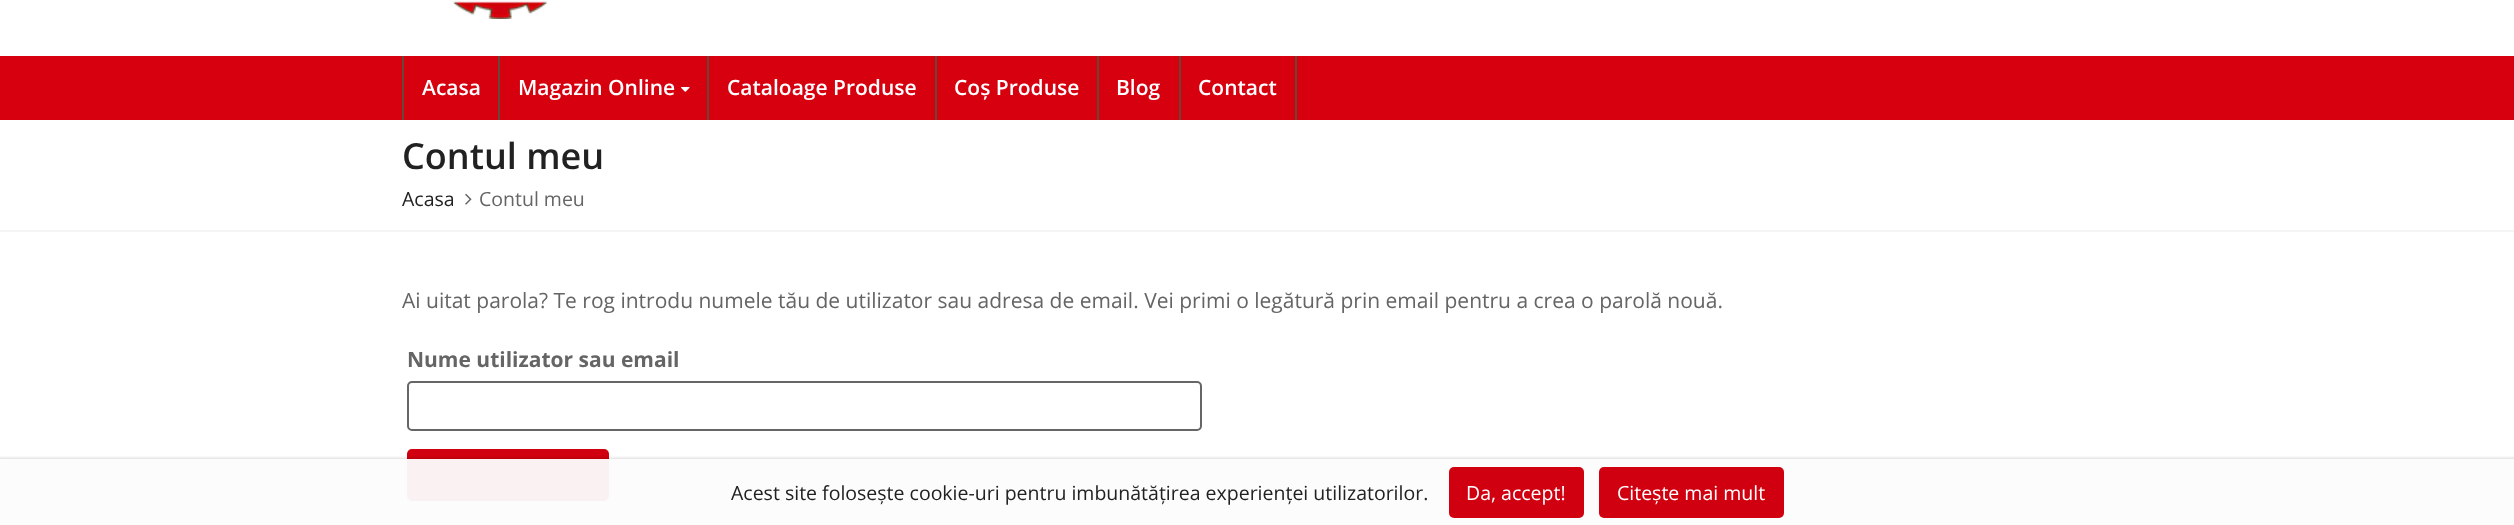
<svg xmlns="http://www.w3.org/2000/svg" width="2514" height="525">
	<defs>
		<clipPath id="clip1"><rect x="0" y="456" width="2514" height="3" /></clipPath>
	</defs>
	<rect width="100%" height="100%" fill="#FFFFFF" />
	<image x="452" y="0" width="96" height="19" href="assets/img1.png" />
	<rect x="0" y="56" width="2514" height="64" fill="#D7000F" />
	<rect x="402" y="56" width="2" height="64" fill="#664838" />
	<text x="422" y="95" font-family="Open Sans" font-size="21" font-weight="600" fill="#FFFFFF">Acasa</text>
	<rect x="498" y="56" width="2" height="64" fill="#664838" />
	<text x="518" y="95" font-family="Open Sans" font-size="21" font-weight="600" fill="#FFFFFF">Magazin Online</text>
	<image x="681" y="87" width="9" height="5" href="assets/img2.png" />
	<rect x="707" y="56" width="2" height="64" fill="#664838" />
	<text x="727" y="95" font-family="Open Sans" font-size="21" font-weight="600" fill="#FFFFFF">Cataloage Produse</text>
	<rect x="935" y="56" width="2" height="64" fill="#664838" />
	<text x="954" y="95" font-family="Open Sans" font-size="21" font-weight="600" fill="#FFFFFF">Coș Produse</text>
	<rect x="1097" y="56" width="2" height="64" fill="#664838" />
	<text x="1116" y="95" font-family="Open Sans" font-size="21" font-weight="600" fill="#FFFFFF">Blog</text>
	<rect x="1295" y="56" width="2" height="64" fill="#664838" />
	<rect x="1179" y="56" width="2" height="64" fill="#664838" />
	<text x="1198" y="95" font-family="Open Sans" font-size="21" font-weight="600" fill="#FFFFFF">Contact</text>
	<rect x="0" y="230" width="2514" height="2" fill="#F5F5F5" />
	<text x="402" y="169" font-family="Open Sans" font-size="36" font-weight="600" fill="#212121">Contul meu</text>
	<text x="402" y="206" font-family="Open Sans" font-size="19.5" fill="#212121">Acasa</text>
	<image x="465" y="193" width="7" height="12" href="assets/img3.png" />
	<text x="479" y="206" font-family="Open Sans" font-size="19.5" fill="#656565">Contul meu</text>
	<text x="402" y="308" font-family="Open Sans" font-size="21" fill="#656565">Ai uitat parola? Te rog introdu numele tău de utilizator sau adresa de email. Vei primi o legătură prin email pentru a crea o parolă nouă.</text>
	<text x="407" y="367" font-family="Open Sans" font-size="21" font-weight="700" fill="#656565">Nume utilizator sau email</text>
	<rect x="408" y="382" width="793" height="48" rx="4" fill="none" stroke="#666666" stroke-width="2" />
	<rect x="407" y="449" width="202" height="52" rx="5" fill="#D00010" />
	<g clip-path="url(#clip1)">
		<rect x="-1" y="458" width="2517" height="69" fill="#000000" fill-opacity="0.15" filter="blur(1.5px)" />
	</g>
	<rect x="0" y="459" width="2514" height="66" fill="#FCFCFC" fill-opacity="0.96" />
	<text x="731" y="500" font-family="Open Sans" font-size="19.5" fill="#212121">Acest site folosește cookie-uri pentru imbunătățirea experienței utilizatorilor.</text>
	<rect x="1449" y="467" width="135" height="51" rx="5" fill="#D00010" />
	<text x="1466" y="500" font-family="Open Sans" font-size="19.5" fill="#FFFFFF">Da, accept!</text>
	<rect x="1599" y="467" width="185" height="51" rx="5" fill="#D00010" />
	<text x="1617" y="500" font-family="Open Sans" font-size="19.5" fill="#FFFFFF">Citește mai mult</text>
</svg>
